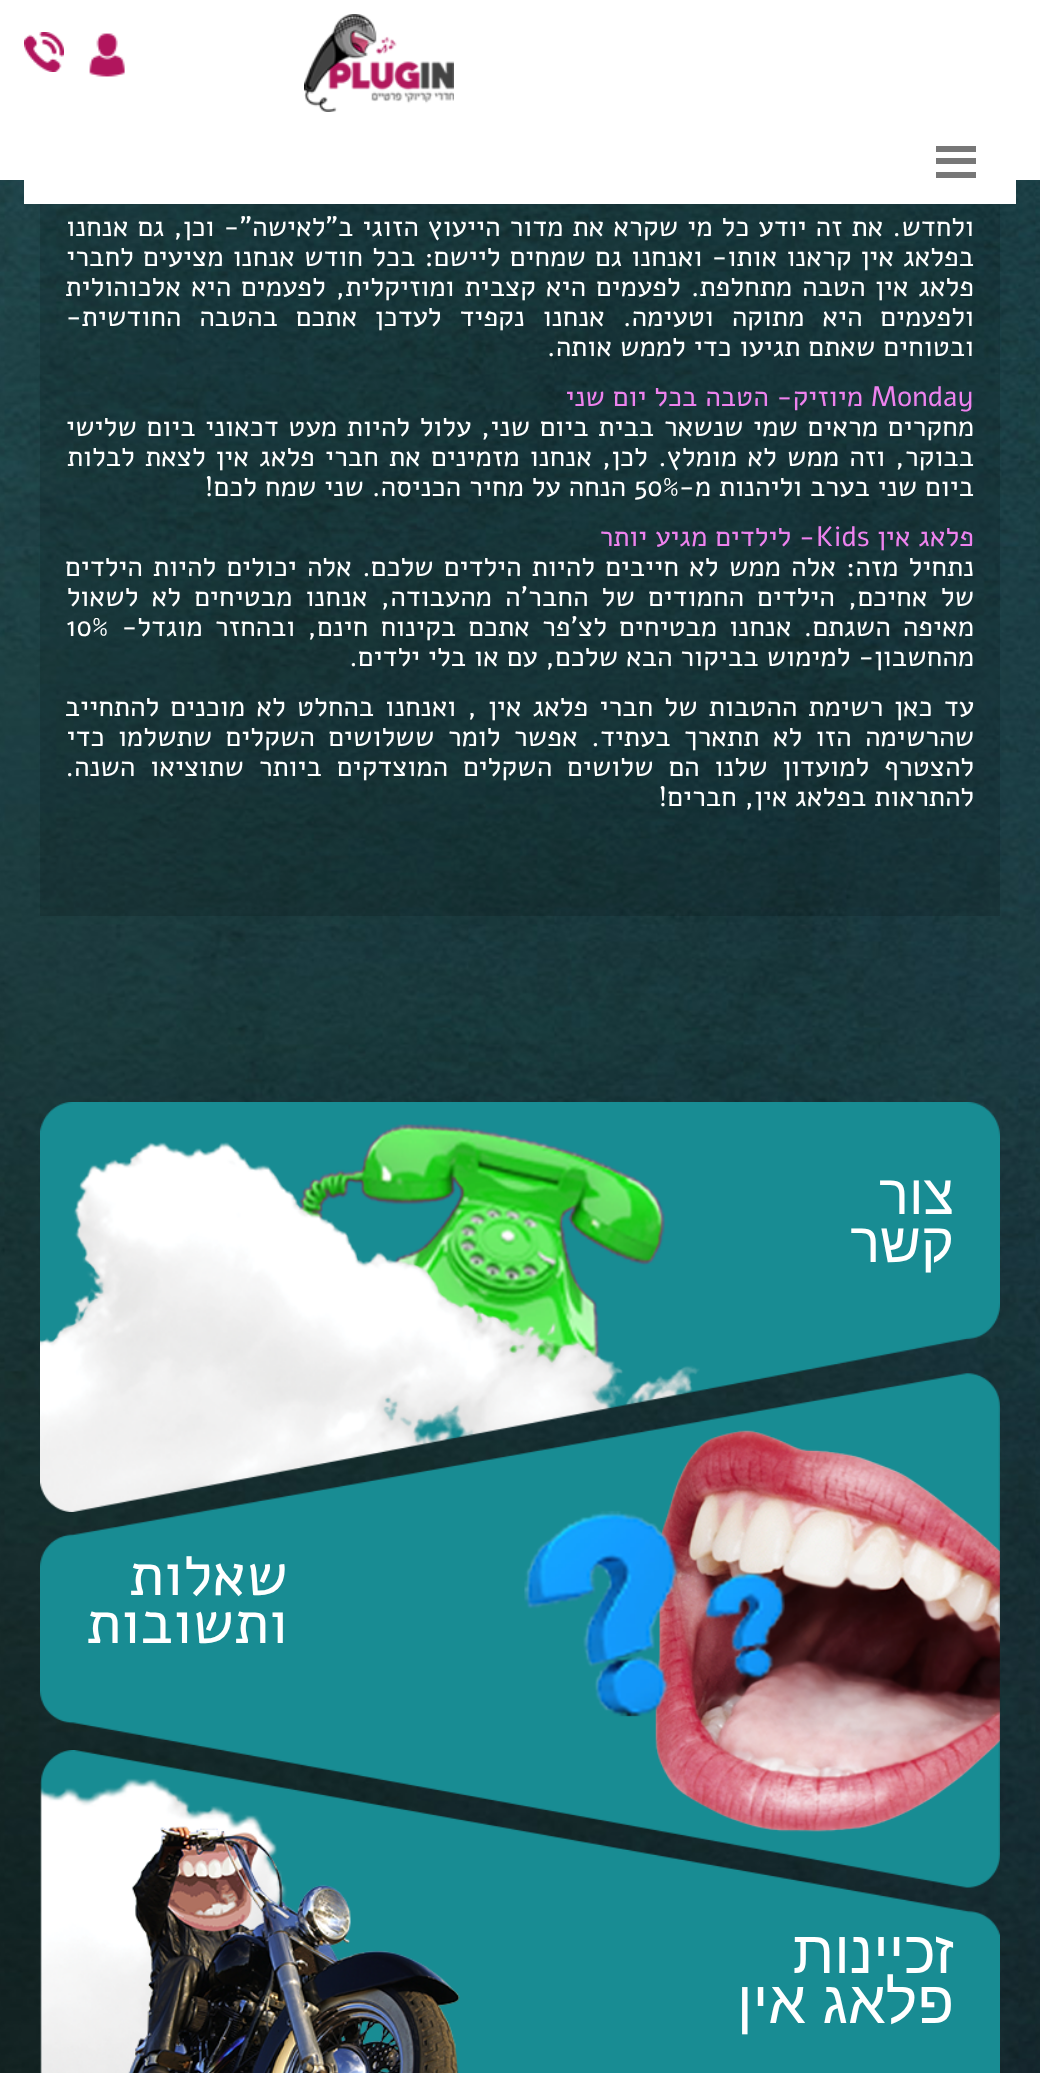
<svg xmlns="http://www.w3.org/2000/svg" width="1040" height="2073">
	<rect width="100%" height="100%" fill="#FFFFFF" />
	<image x="304" y="14" width="150" height="98" href="assets/img1.png" />
	<image x="0" y="180" width="1040" height="1893" href="assets/img4.png" />
	<rect x="24" y="180" width="992" height="24" fill="#FFFFFF" />
	<rect x="936" y="146" width="40" height="6" fill="#777777" />
	<rect x="936" y="158" width="40" height="6" fill="#777777" />
	<rect x="936" y="172" width="40" height="6" fill="#777777" />
	<image x="89" y="33" width="36" height="44" href="assets/img2.png" />
	<image x="24" y="32" width="40" height="40" href="assets/img3.png" />
	<rect x="40" y="204" width="960" height="712" fill="#000000" fill-opacity="0.14" />
	<g font-family="Alef" font-size="28" direction="rtl" fill="#FFFFFF">
		<text x="974" y="236" word-spacing="1.1">ולחדש. את זה יודע כל מי שקרא את מדור הייעוץ הזוגי ב"לאישה"- וכן, גם אנחנו</text>
		<text x="974" y="266" word-spacing="1.25">בפלאג אין קראנו אותו- ואנחנו גם שמחים ליישם: בכל חודש אנחנו מציעים לחברי</text>
		<text x="974" y="296" word-spacing="2">פלאג אין הטבה מתחלפת. לפעמים היא קצבית ומוזיקלית, לפעמים היא אלכוהולית</text>
		<text x="974" y="326" word-spacing="10">ולפעמים היא מתוקה וטעימה. אנחנו נקפיד לעדכן אתכם בהטבה החודשית-</text>
		<text x="974" y="356">ובטוחים שאתם תגיעו כדי לממש אותה.</text>
	</g>
	<text x="871" y="406" font-family="Alef" font-size="28" fill="#EE82EE">Monday</text>
	<text x="863" y="406" font-family="Alef" font-size="28" direction="rtl" fill="#EE82EE">מיוזיק- הטבה בכל יום שני</text>
	<g font-family="Alef" font-size="28" direction="rtl" fill="#FFFFFF">
		<text x="974" y="436" word-spacing="1.75">מחקרים מראים שמי שנשאר בבית ביום שני, עלול להיות מעט דכאוני ביום שלישי</text>
		<text x="974" y="466" word-spacing="2.25">בבוקר, וזה ממש לא מומלץ. לכן, אנחנו מזמינים את חברי פלאג אין לצאת לבלות</text>
		<text x="974" y="496">ביום שני בערב וליהנות מ-</text>
	</g>
	<text x="634" y="496" font-family="Alef" font-size="28" fill="#FFFFFF">50%</text>
	<text x="626" y="496" font-family="Alef" font-size="28" direction="rtl" fill="#FFFFFF">הנחה על מחיר הכניסה. שני שמח לכם!</text>
	<text x="974" y="546" font-family="Alef" font-size="28" direction="rtl" fill="#EE82EE">פלאג אין</text>
	<text x="816" y="546" font-family="Alef" font-size="28" fill="#EE82EE">Kids</text>
	<text x="815" y="546" font-family="Alef" font-size="28" direction="rtl" fill="#EE82EE">- לילדים מגיע יותר</text>
	<g font-family="Alef" font-size="28" direction="rtl" fill="#FFFFFF">
		<text x="974" y="576" word-spacing="2.25">נתחיל מזה: אלה ממש לא חייבים להיות הילדים שלכם. אלה יכולים להיות הילדים</text>
		<text x="974" y="606" word-spacing="5.25">של אחיכם, הילדים החמודים של החבר'ה מהעבודה, אנחנו מבטיחים לא לשאול</text>
		<text x="974" y="636" word-spacing="4.25">מאיפה השגתם. אנחנו מבטיחים לצ'פר אתכם בקינוח חינם, ובהחזר מוגדל-</text>
	</g>
	<text x="66" y="636" font-family="Alef" font-size="28" fill="#FFFFFF">10%</text>
	<g font-family="Alef" font-size="28" direction="rtl" fill="#FFFFFF">
		<text x="974" y="666">מהחשבון- למימוש בביקור הבא שלכם, עם או בלי ילדים.</text>
		<text x="974" y="716" word-spacing="3.25">עד כאן רשימת ההטבות של חברי פלאג אין , ואנחנו בהחלט לא מוכנים להתחייב</text>
		<text x="974" y="746" word-spacing="5.5">שהרשימה הזו לא תתארך בעתיד. אפשר לומר ששלושים השקלים שתשלמו כדי</text>
		<text x="974" y="776" word-spacing="7">להצטרף למועדון שלנו הם שלושים השקלים המוצדקים ביותר שתוציאו השנה.</text>
		<text x="974" y="806">להתראות בפלאג אין, חברים!</text>
	</g>
	<image x="40" y="1102" width="960" height="410" href="assets/img5.png" />
	<g font-family="Liberation Sans" font-size="56" direction="rtl" fill="#FFFFFF">
		<text x="954" y="1214">צור</text>
		<text x="954" y="1262">קשר</text>
	</g>
	<image x="40" y="1373" width="960" height="515" href="assets/img6.png" />
	<g font-family="Alef" font-size="60" direction="rtl" fill="#FFFFFF">
		<text x="288" y="1595">שאלות</text>
		<text x="288" y="1643">ותשובות</text>
	</g>
	<image x="40" y="1750" width="960" height="323" href="assets/img7.png" />
	<g font-family="Liberation Sans" font-size="60" direction="rtl" fill="#FFFFFF">
		<text x="954" y="1973">זכיינות</text>
		<text x="954" y="2023">פלאג אין</text>
	</g>
</svg>
